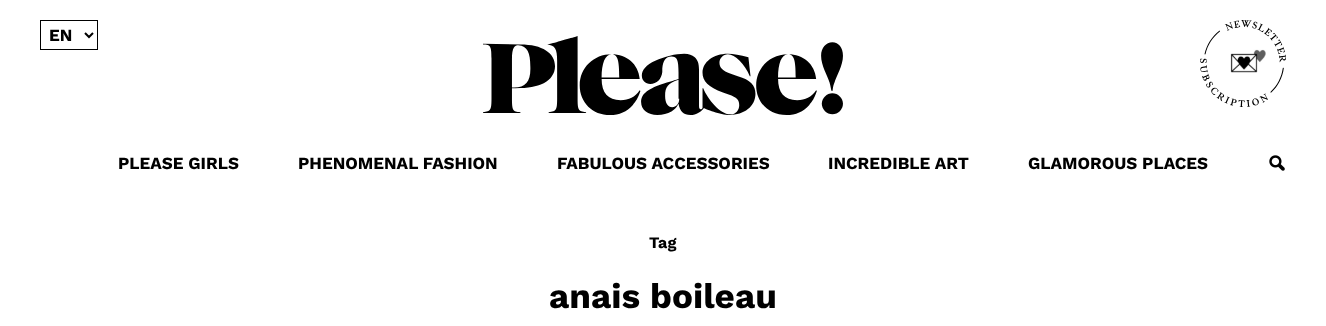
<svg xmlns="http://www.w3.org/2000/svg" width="1326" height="326">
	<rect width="100%" height="100%" fill="#FFFFFF" />
	<rect x="40.5" y="20.5" width="57" height="29" fill="none" stroke="#000000" />
	<path d="M85 33L89 37L93 33" fill="none" stroke="#000000" stroke-width="2" />
	<text x="49" y="41" font-family="Work Sans" font-size="17" font-weight="700" fill="#000000">EN</text>
	<image x="483" y="36" width="360" height="79" href="assets/img1.png" />
	<image x="1230" y="49" width="36" height="24" href="assets/img3.png" />
	<image x="1200" y="20" width="86" height="87" href="assets/img2.png" />
	<g font-family="Work Sans" font-size="17" font-weight="700" fill="#000000">
		<text x="118" y="169">PLEASE GIRLS</text>
		<text x="298" y="169">PHENOMENAL FASHION</text>
		<text x="557" y="169">FABULOUS ACCESSORIES</text>
		<text x="828" y="169">INCREDIBLE ART</text>
		<text x="1028" y="169">GLAMOROUS PLACES</text>
	</g>
	<image x="1269" y="155" width="16" height="16" href="assets/img4.png" />
	<text x="649" y="248" font-family="Work Sans" font-size="16" font-weight="700" fill="#000000">Tag</text>
	<text x="549" y="308" font-family="Work Sans" font-size="35" font-weight="700" fill="#000000">anais boileau</text>
</svg>
